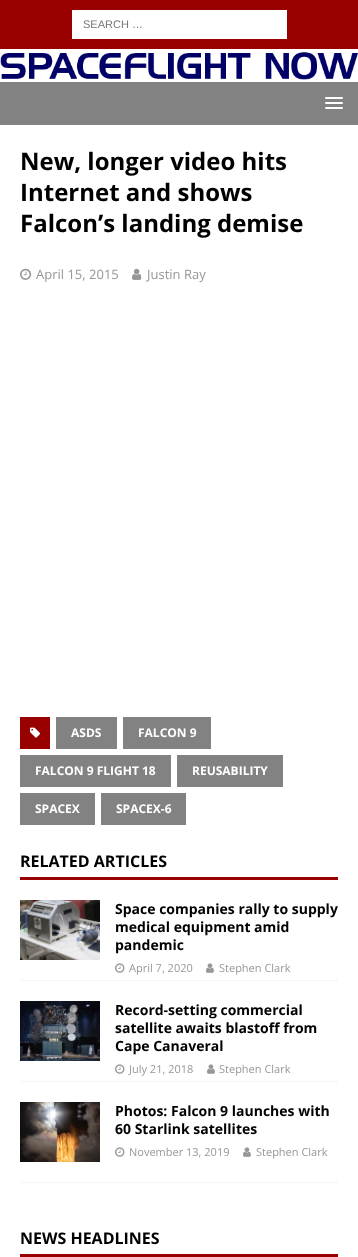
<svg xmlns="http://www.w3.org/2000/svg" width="358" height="1257">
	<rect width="100%" height="100%" fill="#990000" />
	<rect x="72" y="10" width="215" height="29" fill="#FFFFFF" />
	<text x="83" y="28" font-family="Liberation Sans" font-size="11" fill="#757575">SEARCH …</text>
	<rect x="0" y="49" width="358" height="33" fill="#FFFFFF" />
	<image x="0" y="52" width="358" height="28" href="assets/img1.png" />
	<rect x="0" y="82" width="358" height="43" fill="#828282" />
	<rect x="325" y="97" width="18" height="2" rx="1" fill="#FFFFFF" />
	<rect x="325" y="102" width="18" height="2" rx="1" fill="#FFFFFF" />
	<rect x="325" y="107" width="18" height="2" rx="1" fill="#FFFFFF" />
	<rect x="0" y="125" width="358" height="1132" fill="#FFFFFF" />
	<g font-family="Open Sans" font-size="24" font-weight="700" fill="#000000">
		<text x="20" y="170">New, longer video hits</text>
		<text x="20" y="201">Internet and shows</text>
		<text x="20" y="232">Falcon’s landing demise</text>
	</g>
	<image x="20" y="268" width="12" height="12" href="assets/img2.png" />
	<text x="36" y="279" font-family="Open Sans" font-size="13" fill="#979797">April 15, 2015</text>
	<image x="132" y="268" width="10" height="12" href="assets/img3.png" />
	<text x="147" y="279" font-family="Open Sans" font-size="13" fill="#979797">Justin Ray</text>
	<rect x="20" y="717" width="30" height="32" fill="#990000" />
	<image x="30" y="727" width="11" height="11" href="assets/img4.png" />
	<rect x="56" y="717" width="61" height="32" fill="#828282" />
	<text x="71" y="737" font-family="Open Sans" font-size="12" font-weight="700" fill="#FFFFFF">ASDS</text>
	<rect x="123" y="717" width="88" height="32" fill="#828282" />
	<text x="138" y="737" font-family="Open Sans" font-size="12" font-weight="700" fill="#FFFFFF">FALCON 9</text>
	<rect x="20" y="755" width="151" height="32" fill="#828282" />
	<text x="35" y="775" font-family="Open Sans" font-size="12" font-weight="700" fill="#FFFFFF">FALCON 9 FLIGHT 18</text>
	<rect x="177" y="755" width="106" height="32" fill="#828282" />
	<text x="192" y="775" font-family="Open Sans" font-size="12" font-weight="700" fill="#FFFFFF">REUSABILITY</text>
	<rect x="20" y="793" width="75" height="32" fill="#828282" />
	<text x="35" y="813" font-family="Open Sans" font-size="12" font-weight="700" fill="#FFFFFF">SPACEX</text>
	<rect x="101" y="793" width="85" height="32" fill="#828282" />
	<text x="116" y="813" font-family="Open Sans" font-size="12" font-weight="700" fill="#FFFFFF">SPACEX-6</text>
	<rect x="20" y="877" width="318" height="3" fill="#990000" />
	<text x="20" y="867" font-family="Open Sans" font-size="16" font-weight="700" fill="#000000">RELATED ARTICLES</text>
	<path d="M20 980.5H338" fill="none" stroke="#EBEBEB" stroke-dasharray="1 1" />
	<image x="20" y="900" width="80" height="60" href="assets/img5.png" />
	<g font-family="Open Sans" font-size="14" font-weight="700" fill="#000000">
		<text x="115" y="914">Space companies rally to supply</text>
		<text x="115" y="932">medical equipment amid</text>
		<text x="115" y="950">pandemic</text>
	</g>
	<image x="115" y="963" width="10" height="10" href="assets/img6.png" />
	<text x="129" y="972" font-family="Open Sans" font-size="11" fill="#979797">April 7, 2020</text>
	<image x="206" y="963" width="8" height="10" href="assets/img7.png" />
	<text x="219" y="972" font-family="Open Sans" font-size="11" fill="#979797">Stephen Clark</text>
	<path d="M20 1081.5H338" fill="none" stroke="#EBEBEB" stroke-dasharray="1 1" />
	<image x="20" y="1001" width="80" height="60" href="assets/img8.png" />
	<g font-family="Open Sans" font-size="14" font-weight="700" fill="#000000">
		<text x="115" y="1015">Record-setting commercial</text>
		<text x="115" y="1033">satellite awaits blastoff from</text>
		<text x="115" y="1051">Cape Canaveral</text>
	</g>
	<image x="115" y="1064" width="10" height="10" href="assets/img6.png" />
	<text x="129" y="1073" font-family="Open Sans" font-size="11" fill="#979797">July 21, 2018</text>
	<image x="207" y="1064" width="8" height="10" href="assets/img7.png" />
	<text x="219" y="1073" font-family="Open Sans" font-size="11" fill="#979797">Stephen Clark</text>
	<path d="M20 1182.5H338" fill="none" stroke="#EBEBEB" stroke-dasharray="1 1" />
	<image x="20" y="1102" width="80" height="60" href="assets/img9.png" />
	<g font-family="Open Sans" font-size="14" font-weight="700" fill="#000000">
		<text x="115" y="1116">Photos: Falcon 9 launches with</text>
		<text x="115" y="1134">60 Starlink satellites</text>
	</g>
	<image x="115" y="1147" width="10" height="10" href="assets/img6.png" />
	<text x="129" y="1156" font-family="Open Sans" font-size="11" fill="#979797">November 13, 2019</text>
	<image x="243" y="1147" width="8" height="10" href="assets/img7.png" />
	<text x="256" y="1156" font-family="Open Sans" font-size="11" fill="#979797">Stephen Clark</text>
	<rect x="20" y="1254" width="318" height="3" fill="#990000" />
	<text x="20" y="1244" font-family="Open Sans" font-size="16" font-weight="700" fill="#000000">NEWS HEADLINES</text>
</svg>
